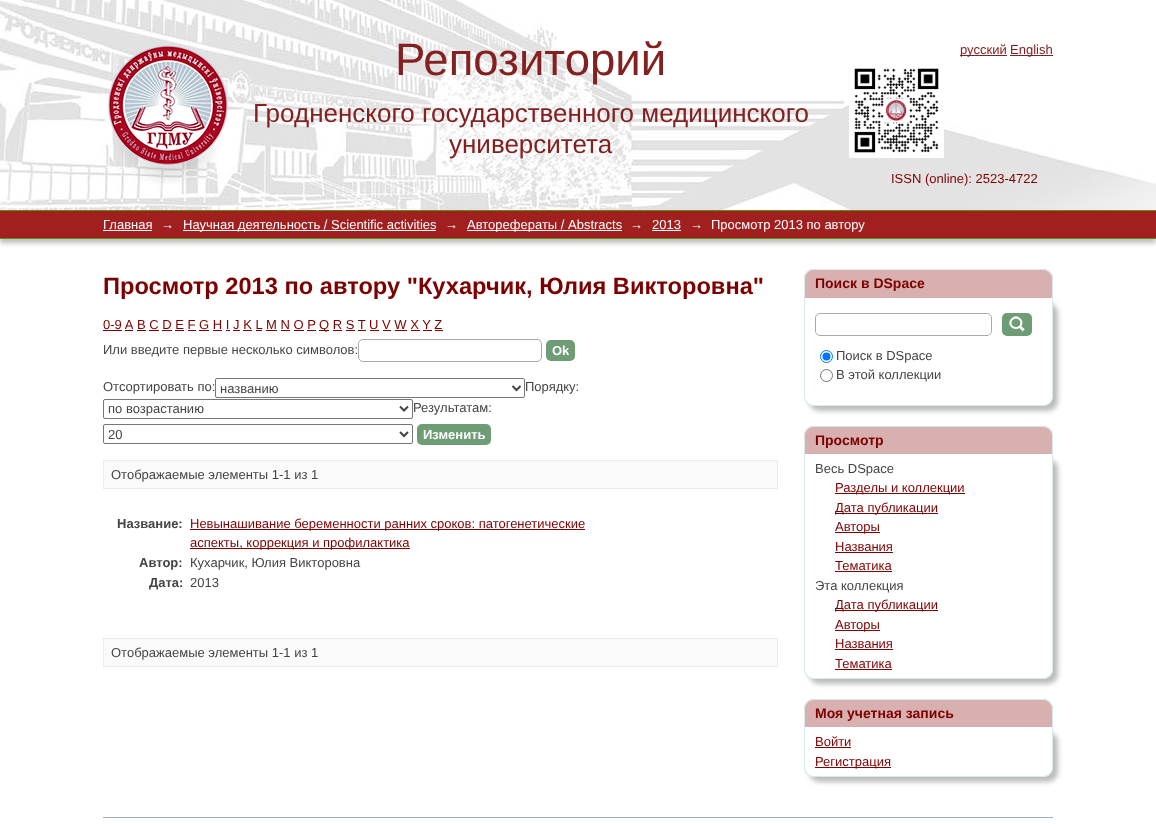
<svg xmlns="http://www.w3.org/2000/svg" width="1156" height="824">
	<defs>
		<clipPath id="clip1"><path d="M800 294H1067V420H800ZM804 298H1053V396C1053 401.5 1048.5 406 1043 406H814C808.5 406 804 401.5 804 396Z" clip-rule="evenodd" /></clipPath>
		<clipPath id="clip2"><path d="M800 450H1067V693H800ZM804 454H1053V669C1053 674.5 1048.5 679 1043 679H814C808.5 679 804 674.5 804 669Z" clip-rule="evenodd" /></clipPath>
		<clipPath id="clip3"><path d="M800 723H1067V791H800ZM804 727H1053V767C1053 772.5 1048.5 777 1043 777H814C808.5 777 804 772.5 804 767Z" clip-rule="evenodd" /></clipPath>
	</defs>
	<rect width="100%" height="100%" fill="#FFFFFF" />
	<image x="0" y="0" width="1156" height="210" href="assets/img1.png" />
	<image x="108" y="45" width="120" height="139" href="assets/img2.png" />
	<text x="395" y="75" font-family="Liberation Sans" font-size="45.5" fill="#842020">Репозиторий</text>
	<g font-family="Liberation Sans" font-size="26" fill="#842020">
		<text x="253" y="122">Гродненского государственного медицинского</text>
		<text x="449" y="153">университета</text>
	</g>
	<text x="891" y="183" font-family="Liberation Sans" font-size="13" fill="#7D0000">ISSN (online): 2523-4722</text>
	<image x="849" y="68" width="95" height="90" href="assets/img3.png" />
	<rect x="960" y="55" width="47" height="1" fill="#842020" />
	<text x="960" y="54" font-family="Liberation Sans" font-size="13" fill="#842020">русский</text>
	<rect x="1010" y="55" width="43" height="1" fill="#842020" />
	<text x="1010" y="54" font-family="Liberation Sans" font-size="13" fill="#842020">English</text>
	<rect x="0" y="214" width="1156" height="29" fill="#7A7A7A" fill-opacity="0.5" filter="blur(2.5px)" />
	<rect x="0" y="211" width="1156" height="27" fill="#A02020" />
	<rect x="0" y="210" width="1156" height="1" fill="#5F9014" />
	<rect x="0" y="238" width="1156" height="1" fill="#5F9014" />
	<text x="103" y="229" font-family="Liberation Sans" font-size="13" fill="#FFFFFF">Главная</text>
	<rect x="103" y="230" width="49" height="1" fill="#FFFFFF" />
	<text x="161" y="229" font-family="Liberation Sans" font-size="13" fill="#FFFFFF">→</text>
	<rect x="183" y="230" width="253" height="1" fill="#FFFFFF" />
	<g font-family="Liberation Sans" font-size="13" fill="#FFFFFF">
		<text x="183" y="229">Научная деятельность / Scientific activities</text>
		<text x="445" y="229">→</text>
	</g>
	<rect x="467" y="230" width="155" height="1" fill="#FFFFFF" />
	<g font-family="Liberation Sans" font-size="13" fill="#FFFFFF">
		<text x="467" y="229">Авторефераты / Abstracts</text>
		<text x="630" y="229">→</text>
		<text x="652" y="229">2013</text>
	</g>
	<rect x="652" y="230" width="29" height="1" fill="#FFFFFF" />
	<g font-family="Liberation Sans" font-size="13" fill="#FFFFFF">
		<text x="690" y="229">→</text>
		<text x="711" y="229">Просмотр 2013 по автору</text>
	</g>
	<text x="103" y="294" font-family="Liberation Sans" font-size="23.65" font-weight="700" fill="#7D0000">Просмотр 2013 по автору "Кухарчик, Юлия Викторовна"</text>
	<text x="103" y="329" font-family="Liberation Sans" font-size="13" fill="#7D0000">0-9 A</text>
	<rect x="103" y="330" width="19" height="1" fill="#7D0000" />
	<text x="137" y="329" font-family="Liberation Sans" font-size="13" fill="#7D0000">B C D E F G H I J K L</text>
	<rect x="137" y="330" width="9" height="1" fill="#7D0000" />
	<text x="266" y="329" font-family="Liberation Sans" font-size="13" fill="#7D0000">M N O P</text>
	<rect x="266" y="330" width="11" height="1" fill="#7D0000" />
	<rect x="319" y="330" width="10" height="1" fill="#7D0000" />
	<text x="319" y="329" font-family="Liberation Sans" font-size="13" fill="#7D0000">Q R S T U V W X Y Z</text>
	<rect x="125" y="330" width="8" height="1" fill="#7D0000" />
	<rect x="149" y="330" width="10" height="1" fill="#7D0000" />
	<rect x="162" y="330" width="10" height="1" fill="#7D0000" />
	<rect x="175" y="330" width="9" height="1" fill="#7D0000" />
	<rect x="188" y="330" width="8" height="1" fill="#7D0000" />
	<rect x="199" y="330" width="10" height="1" fill="#7D0000" />
	<rect x="213" y="330" width="9" height="1" fill="#7D0000" />
	<rect x="226" y="330" width="4" height="1" fill="#7D0000" />
	<rect x="233" y="330" width="7" height="1" fill="#7D0000" />
	<rect x="243" y="330" width="9" height="1" fill="#7D0000" />
	<rect x="256" y="330" width="6" height="1" fill="#7D0000" />
	<rect x="281" y="330" width="9" height="1" fill="#7D0000" />
	<rect x="294" y="330" width="10" height="1" fill="#7D0000" />
	<rect x="307" y="330" width="9" height="1" fill="#7D0000" />
	<rect x="333" y="330" width="9" height="1" fill="#7D0000" />
	<rect x="346" y="330" width="9" height="1" fill="#7D0000" />
	<rect x="358" y="330" width="8" height="1" fill="#7D0000" />
	<rect x="370" y="330" width="9" height="1" fill="#7D0000" />
	<rect x="383" y="330" width="8" height="1" fill="#7D0000" />
	<rect x="395" y="330" width="12" height="1" fill="#7D0000" />
	<rect x="411" y="330" width="9" height="1" fill="#7D0000" />
	<rect x="423" y="330" width="9" height="1" fill="#7D0000" />
	<rect x="435" y="330" width="8" height="1" fill="#7D0000" />
	<text x="103" y="354" font-family="Liberation Sans" font-size="13" fill="#444444">Или введите первые несколько символов:</text>
	<rect x="358.5" y="339.5" width="183" height="22" rx="4.5" fill="none" stroke="#AAAAAA" />
	<rect x="546" y="340" width="29" height="21" rx="5" fill="#6D9C75" />
	<text x="552" y="355" font-family="Liberation Sans" font-size="13" font-weight="700" fill="#FFFFFF">Ok</text>
	<text x="103" y="391" font-family="Liberation Sans" font-size="13" fill="#444444">Отсортировать по:</text>
	<rect x="215.5" y="378.5" width="309" height="19" rx="1.5" fill="none" stroke="#767676" />
	<path d="M512.5 386L516.5 390L520.5 386" fill="none" stroke="#444444" stroke-width="2" />
	<g font-family="Liberation Sans" font-size="13" fill="#444444">
		<text x="220" y="393">названию</text>
		<text x="525" y="391">Порядку:</text>
	</g>
	<rect x="103.5" y="399.5" width="309" height="19" rx="1.5" fill="none" stroke="#767676" />
	<path d="M400 406.5L404 410.5L408 406.5" fill="none" stroke="#444444" stroke-width="2" />
	<g font-family="Liberation Sans" font-size="13" fill="#444444">
		<text x="108" y="413">по возрастанию</text>
		<text x="413" y="412">Результатам:</text>
	</g>
	<rect x="103.5" y="424.5" width="309" height="19" rx="1.5" fill="none" stroke="#767676" />
	<path d="M400 432L404 436L408 432" fill="none" stroke="#444444" stroke-width="2" />
	<text x="108" y="439" font-family="Liberation Sans" font-size="13" fill="#444444">20</text>
	<rect x="417" y="424" width="74" height="21" rx="5" fill="#6D9C75" />
	<text x="423" y="439" font-family="Liberation Sans" font-size="13" font-weight="700" fill="#FFFFFF">Изменить</text>
	<rect x="103.5" y="460.5" width="674" height="28" fill="#FAFAFA" stroke="#EBEBEB" />
	<text x="111" y="479" font-family="Liberation Sans" font-size="13" fill="#444444">Отображаемые элементы 1-1 из 1</text>
	<text x="117" y="528" font-family="Liberation Sans" font-size="13" font-weight="700" fill="#444444">Название:</text>
	<rect x="190" y="529" width="395" height="1" fill="#7D0000" />
	<text x="190" y="528" font-family="Liberation Sans" font-size="13" fill="#7D0000">Невынашивание беременности ранних сроков: патогенетические</text>
	<rect x="190" y="548" width="220" height="1" fill="#7D0000" />
	<text x="190" y="547" font-family="Liberation Sans" font-size="13" fill="#7D0000">аспекты, коррекция и профилактика</text>
	<text x="139" y="567" font-family="Liberation Sans" font-size="13" font-weight="700" fill="#444444">Автор:</text>
	<text x="190" y="567" font-family="Liberation Sans" font-size="13" fill="#444444">Кухарчик, Юлия Викторовна</text>
	<text x="149" y="587" font-family="Liberation Sans" font-size="13" font-weight="700" fill="#444444">Дата:</text>
	<text x="190" y="587" font-family="Liberation Sans" font-size="13" fill="#444444">2013</text>
	<rect x="103.5" y="638.5" width="674" height="28" fill="#FAFAFA" stroke="#EBEBEB" />
	<text x="111" y="657" font-family="Liberation Sans" font-size="13" fill="#444444">Отображаемые элементы 1-1 из 1</text>
	<path d="M814 269H1043C1048.5 269 1053 273.5 1053 279V298H804V279C804 273.5 808.5 269 814 269Z" fill="#D8B0B0" />
	<path d="M814 269H1043C1049 269 1053 273 1053 279V298H804V279C804 273 808 269 814 269ZM814 270H1043C1048 270 1052 274 1052 279V298H805V279C805 274 809 270 814 270Z" fill="#D8E8EB" fill-rule="evenodd" />
	<text x="815" y="288" font-family="Liberation Sans" font-size="14" font-weight="700" fill="#7D0000">Поиск в DSpace</text>
	<g clip-path="url(#clip1)">
		<rect x="809" y="303" width="249" height="108" rx="10" fill="#7A7A7A" fill-opacity="0.5" filter="blur(2.5px)" />
	</g>
	<path d="M804 298H1053V396C1053 402 1049 406 1043 406H814C808 406 804 402 804 396ZM805 298H1052V396C1052 401 1048 405 1043 405H814C809 405 805 401 805 396Z" fill="#D8E8EB" fill-rule="evenodd" />
	<rect x="815.5" y="313.5" width="176" height="22" rx="4.5" fill="none" stroke="#AAAAAA" />
	<rect x="1002" y="313" width="30" height="23" rx="5" fill="#6D9C75" />
	<image x="1009" y="316" width="16" height="16" href="assets/img4.png" />
	<circle cx="826.5" cy="356.5" r="6" fill="none" stroke="#0075FF" />
	<circle cx="826.5" cy="356.5" r="4" fill="#0075FF" />
	<text x="836" y="360" font-family="Liberation Sans" font-size="13" fill="#444444">Поиск в DSpace</text>
	<circle cx="826.5" cy="375.5" r="6" fill="none" stroke="#767676" />
	<text x="836" y="379" font-family="Liberation Sans" font-size="13" fill="#444444">В этой коллекции</text>
	<path d="M814 426H1043C1048.5 426 1053 430.5 1053 436V454H804V436C804 430.5 808.5 426 814 426Z" fill="#D8B0B0" />
	<path d="M814 426H1043C1049 426 1053 430 1053 436V454H804V436C804 430 808 426 814 426ZM814 427H1043C1048 427 1052 431 1052 436V454H805V436C805 431 809 427 814 427Z" fill="#D8E8EB" fill-rule="evenodd" />
	<text x="815" y="445" font-family="Liberation Sans" font-size="14" font-weight="700" fill="#7D0000">Просмотр</text>
	<g clip-path="url(#clip2)">
		<rect x="809" y="459" width="249" height="225" rx="10" fill="#7A7A7A" fill-opacity="0.5" filter="blur(2.5px)" />
	</g>
	<path d="M804 454H1053V669C1053 675 1049 679 1043 679H814C808 679 804 675 804 669ZM805 454H1052V669C1052 674 1048 678 1043 678H814C809 678 805 674 805 669Z" fill="#D8E8EB" fill-rule="evenodd" />
	<text x="815" y="473" font-family="Liberation Sans" font-size="13" fill="#444444">Весь DSpace</text>
	<rect x="835" y="493" width="130" height="1" fill="#7D0000" />
	<text x="835" y="492" font-family="Liberation Sans" font-size="13" fill="#7D0000">Разделы и коллекции</text>
	<rect x="835" y="513" width="103" height="1" fill="#7D0000" />
	<text x="835" y="512" font-family="Liberation Sans" font-size="13" fill="#7D0000">Дата публикации</text>
	<rect x="835" y="532" width="45" height="1" fill="#7D0000" />
	<g font-family="Liberation Sans" font-size="13" fill="#7D0000">
		<text x="835" y="531">Авторы</text>
		<text x="835" y="551">Названия</text>
	</g>
	<rect x="835" y="552" width="58" height="1" fill="#7D0000" />
	<text x="835" y="570" font-family="Liberation Sans" font-size="13" fill="#7D0000">Тематика</text>
	<rect x="835" y="571" width="57" height="1" fill="#7D0000" />
	<text x="815" y="590" font-family="Liberation Sans" font-size="13" fill="#444444">Эта коллекция</text>
	<rect x="835" y="610" width="103" height="1" fill="#7D0000" />
	<text x="835" y="609" font-family="Liberation Sans" font-size="13" fill="#7D0000">Дата публикации</text>
	<rect x="835" y="630" width="45" height="1" fill="#7D0000" />
	<g font-family="Liberation Sans" font-size="13" fill="#7D0000">
		<text x="835" y="629">Авторы</text>
		<text x="835" y="648">Названия</text>
	</g>
	<rect x="835" y="649" width="58" height="1" fill="#7D0000" />
	<text x="835" y="668" font-family="Liberation Sans" font-size="13" fill="#7D0000">Тематика</text>
	<rect x="835" y="669" width="57" height="1" fill="#7D0000" />
	<path d="M814 699H1043C1048.5 699 1053 703.5 1053 709V727H804V709C804 703.5 808.5 699 814 699Z" fill="#D8B0B0" />
	<path d="M814 699H1043C1049 699 1053 703 1053 709V727H804V709C804 703 808 699 814 699ZM814 700H1043C1048 700 1052 704 1052 709V727H805V709C805 704 809 700 814 700Z" fill="#D8E8EB" fill-rule="evenodd" />
	<text x="815" y="718" font-family="Liberation Sans" font-size="14" font-weight="700" fill="#7D0000">Моя учетная запись</text>
	<g clip-path="url(#clip3)">
		<rect x="809" y="732" width="249" height="50" rx="10" fill="#7A7A7A" fill-opacity="0.5" filter="blur(2.5px)" />
	</g>
	<path d="M804 727H1053V767C1053 773 1049 777 1043 777H814C808 777 804 773 804 767ZM805 727H1052V767C1052 772 1048 776 1043 776H814C809 776 805 772 805 767Z" fill="#D8E8EB" fill-rule="evenodd" />
	<text x="815" y="746" font-family="Liberation Sans" font-size="13" fill="#7D0000">Войти</text>
	<rect x="815" y="747" width="36" height="1" fill="#7D0000" />
	<rect x="815" y="767" width="76" height="1" fill="#7D0000" />
	<text x="815" y="766" font-family="Liberation Sans" font-size="13" fill="#7D0000">Регистрация</text>
	<rect x="103" y="817" width="950" height="1" fill="#9CACBA" />
</svg>
